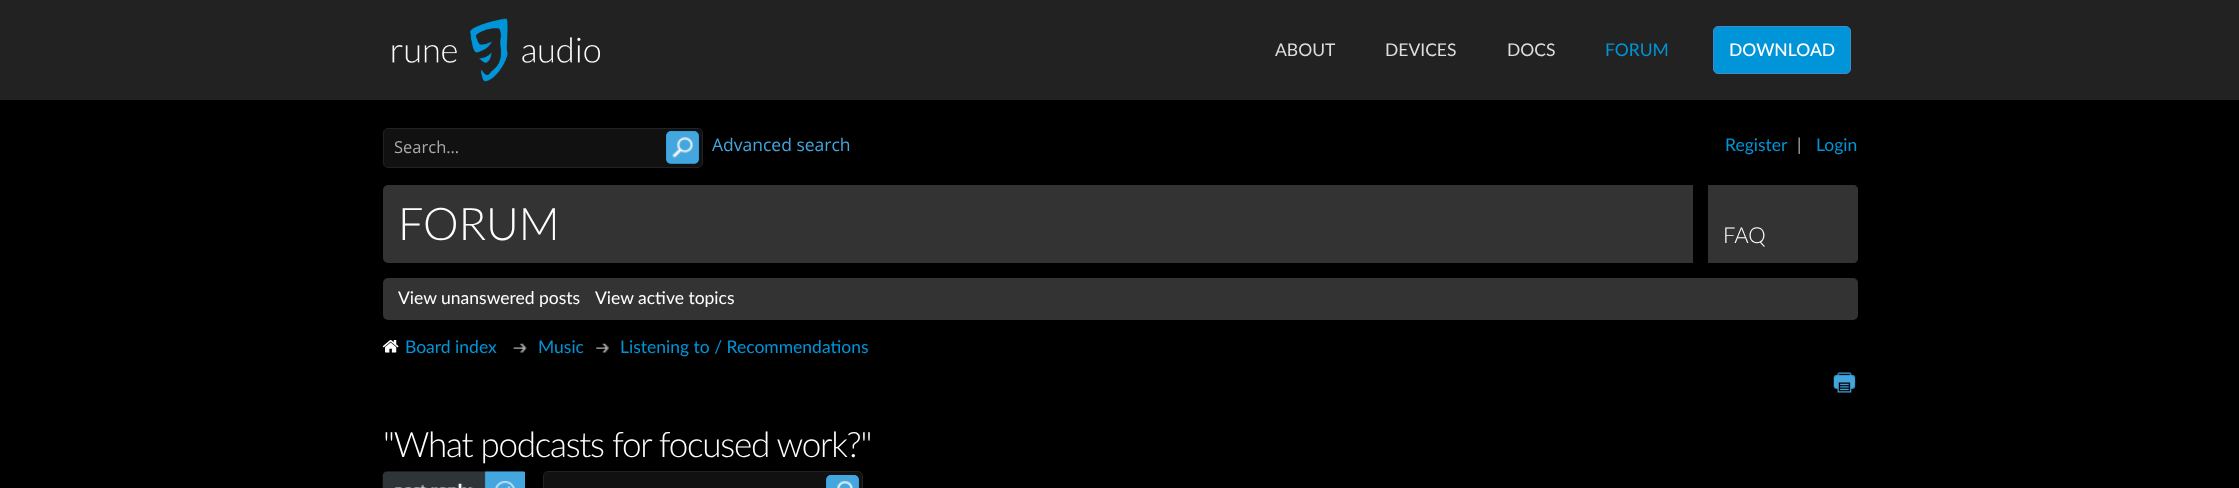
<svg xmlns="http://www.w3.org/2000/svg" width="2239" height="488">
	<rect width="100%" height="100%" fill="#000000" />
	<rect x="0" y="0" width="2239" height="100" fill="#222222" />
	<image x="392" y="18" width="208" height="64" href="assets/img1.png" />
	<g font-family="Lato" font-size="17.5" fill="#DDDDDD">
		<text x="1275" y="56">ABOUT</text>
		<text x="1385" y="56">DEVICES</text>
		<text x="1507" y="56">DOCS</text>
	</g>
	<text x="1605" y="56" font-family="Lato" font-size="17.5" fill="#0095D8">FORUM</text>
	<rect x="1713.5" y="26.5" width="137" height="47" rx="4.5" fill="#0095D8" stroke="#428BCA" />
	<text x="1729" y="56" font-family="Lato" font-size="17.5" font-weight="500" fill="#FFFFFF">DOWNLOAD</text>
	<rect x="383.5" y="128.5" width="319" height="39" rx="4.5" fill="#111111" stroke="#222222" />
	<text x="394" y="153" font-family="Open Sans" font-size="16.5" fill="#AAAAAA">Search…</text>
	<rect x="666" y="131" width="33" height="33" rx="5" fill="#0095D8" />
	<image x="666" y="131" width="33" height="33" href="assets/img2.png" />
	<text x="712" y="151" font-family="Open Sans" font-size="17.5" fill="#43A6DF">Advanced search</text>
	<text x="1725" y="151" font-family="Lato" font-size="17.5" fill="#0095D8">Register</text>
	<text x="1797" y="151" font-family="Lato" font-size="17.5" fill="#AAAAAA">|</text>
	<text x="1816" y="151" font-family="Lato" font-size="17.5" fill="#0095D8">Login</text>
	<rect x="383" y="185" width="1475" height="78" rx="5" fill="#333333" />
	<text x="398" y="240" font-family="Lato" font-size="45" font-weight="300" fill="#FFFFFF">FORUM</text>
	<rect x="1693" y="185" width="15" height="78" fill="#000000" />
	<path d="M1708 185H1853C1856 185 1858 187 1858 190V258C1858 261 1856 263 1853 263H1708Z" fill="#333333" />
	<text x="1723" y="243" font-family="Lato" font-size="22" font-weight="300" fill="#FFFFFF">FAQ</text>
	<rect x="383" y="278" width="1475" height="42" rx="5" fill="#333333" />
	<g font-family="Lato" font-size="17.5" fill="#FFFFFF">
		<text x="398" y="304">View unanswered posts</text>
		<text x="595" y="304">View active topics</text>
	</g>
	<image x="382" y="340" width="17" height="13" href="assets/img3.png" />
	<text x="405" y="353" font-family="Lato" font-size="17.5" fill="#0095D8">Board index</text>
	<image x="513" y="343" width="14" height="10" href="assets/img4.png" />
	<text x="538" y="353" font-family="Lato" font-size="17.5" fill="#0095D8">Music</text>
	<image x="596" y="343" width="13" height="10" href="assets/img5.png" />
	<text x="620" y="353" font-family="Lato" font-size="17.5" fill="#0095D8">Listening to / Recommendations</text>
	<image x="1833" y="372" width="23" height="21" href="assets/img6.png" />
	<text x="383" y="457" font-family="Lato" font-size="35" font-weight="300" letter-spacing="-1.25" fill="#FFFFFF">"What podcasts for focused work?"</text>
	<image x="382" y="471" width="143" height="17" href="assets/img7.png" />
	<rect x="543.5" y="471.5" width="319" height="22" rx="4.5" fill="#111111" stroke="#222222" />
	<rect x="826" y="475" width="33" height="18" rx="5" fill="#0095D8" />
	<image x="826" y="475" width="33" height="13" href="assets/img8.png" />
</svg>
